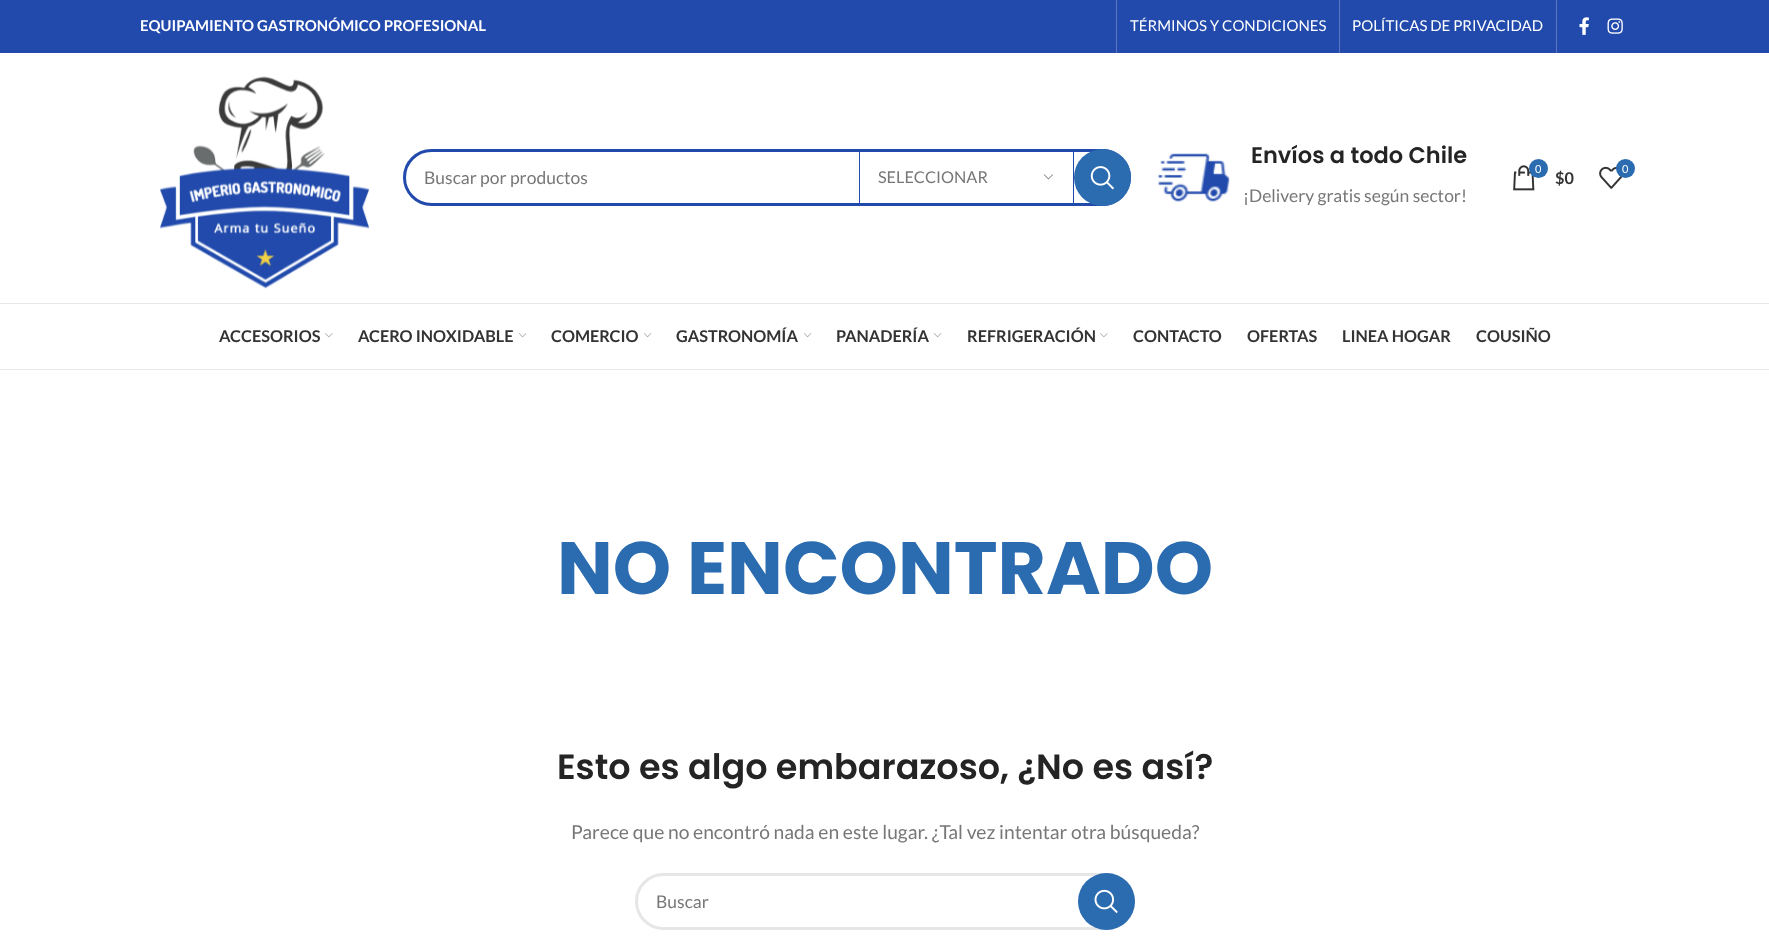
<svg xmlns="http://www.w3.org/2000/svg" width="1769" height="941">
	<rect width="100%" height="100%" fill="#FFFFFF" />
	<rect x="0" y="0" width="1769" height="53" fill="#214AAC" />
	<text x="140" y="31" font-family="Lato" font-size="15" font-weight="700" fill="#FFFFFF">EQUIPAMIENTO GASTRONÓMICO PROFESIONAL</text>
	<rect x="1116" y="0" width="1" height="53" fill="#5977C1" />
	<text x="1130" y="31" font-family="Lato" font-size="15" fill="#FFFFFF">TÉRMINOS Y CONDICIONES</text>
	<rect x="1339" y="0" width="1" height="53" fill="#5977C1" />
	<text x="1352" y="31" font-family="Lato" font-size="15" fill="#FFFFFF">POLÍTICAS DE PRIVACIDAD</text>
	<rect x="1556" y="0" width="1" height="53" fill="#5977C1" />
	<image x="1579" y="17" width="10" height="18" href="assets/img1.png" />
	<image x="1607" y="18" width="16" height="16" href="assets/img2.png" />
	<rect x="0" y="303" width="1769" height="1" fill="#E8E8E8" />
	<image x="160" y="76" width="210" height="213" href="assets/img3.png" />
	<rect x="404.5" y="150.5" width="725" height="54" rx="27" fill="none" stroke="#214AAC" stroke-width="3" />
	<text x="424" y="184" font-family="Lato" font-size="17.5" fill="#777777">Buscar por productos</text>
	<rect x="1073" y="151" width="1" height="53" fill="#214AAC" />
	<rect x="859" y="151" width="1" height="53" fill="#214AAC" />
	<text x="878" y="183" font-family="Lato" font-size="16.25" fill="#777777">SELECCIONAR</text>
	<image x="1043" y="174" width="10" height="6" href="assets/img4.png" />
	<circle cx="1102.5" cy="177.5" r="28.5" fill="#2B6CB0" />
	<image x="1090" y="166" width="24" height="24" href="assets/img5.png" />
	<image x="1157" y="153" width="73" height="49" href="assets/img6.png" />
	<text x="1251" y="163" font-family="Poppins" font-size="22.5" font-weight="600" fill="#242424">Envíos a todo Chile</text>
	<text x="1243" y="202" font-family="Lato" font-size="17.5" fill="#777777">¡Delivery gratis según sector!</text>
	<image x="1513" y="165" width="22" height="26" href="assets/img7.png" />
	<circle cx="1538.5" cy="168.5" r="9.5" fill="#2B6CB0" />
	<text x="1535" y="173" font-family="Lato" font-size="11" fill="#FFFFFF">0</text>
	<text x="1555" y="184" font-family="Lato" font-size="16.25" font-weight="700" fill="#333333">$0</text>
	<image x="1599" y="166" width="24" height="23" href="assets/img8.png" />
	<circle cx="1625.5" cy="168.5" r="9.5" fill="#2B6CB0" />
	<text x="1622" y="173" font-family="Lato" font-size="11" fill="#FFFFFF">0</text>
	<rect x="0" y="369" width="1769" height="1" fill="#E8E8E8" />
	<text x="219" y="342" font-family="Lato" font-size="16.25" font-weight="700" fill="#333333">ACCESORIOS</text>
	<image x="325" y="333" width="8" height="5" href="assets/img9.png" />
	<text x="358" y="342" font-family="Lato" font-size="16.25" font-weight="700" fill="#333333">ACERO INOXIDABLE</text>
	<image x="518" y="333" width="9" height="5" href="assets/img10.png" />
	<text x="551" y="342" font-family="Lato" font-size="16.25" font-weight="700" fill="#333333">COMERCIO</text>
	<image x="643" y="333" width="9" height="5" href="assets/img10.png" />
	<text x="676" y="342" font-family="Lato" font-size="16.25" font-weight="700" fill="#333333">GASTRONOMÍA</text>
	<image x="803" y="333" width="9" height="5" href="assets/img10.png" />
	<text x="836" y="342" font-family="Lato" font-size="16.25" font-weight="700" fill="#333333">PANADERÍA</text>
	<image x="933" y="333" width="9" height="5" href="assets/img10.png" />
	<text x="967" y="342" font-family="Lato" font-size="16.25" font-weight="700" fill="#333333">REFRIGERACIÓN</text>
	<image x="1100" y="333" width="8" height="5" href="assets/img9.png" />
	<g font-family="Lato" font-size="16.25" font-weight="700" fill="#333333">
		<text x="1133" y="342">CONTACTO</text>
		<text x="1247" y="342">OFERTAS</text>
		<text x="1342" y="342">LINEA HOGAR</text>
		<text x="1476" y="342">COUSIÑO</text>
	</g>
	<text x="557" y="594" font-family="Poppins" font-size="74.25" font-weight="700" fill="#2B6CB0">NO ENCONTRADO</text>
	<text x="557" y="779" font-family="Poppins" font-size="35" font-weight="600" fill="#242424">Esto es algo embarazoso, ¿No es así?</text>
	<text x="571" y="839" font-family="Lato" font-size="19.25" fill="#777777">Parece que no encontró nada en este lugar. ¿Tal vez intentar otra búsqueda?</text>
	<rect x="636.5" y="874.5" width="497" height="54" rx="27" fill="none" stroke="#E6E6E6" stroke-width="3" />
	<text x="656" y="908" font-family="Lato" font-size="17.5" fill="#777777">Buscar</text>
	<circle cx="1106.5" cy="901.5" r="28.5" fill="#2B6CB0" />
	<image x="1094" y="889" width="24" height="25" href="assets/img11.png" />
</svg>
